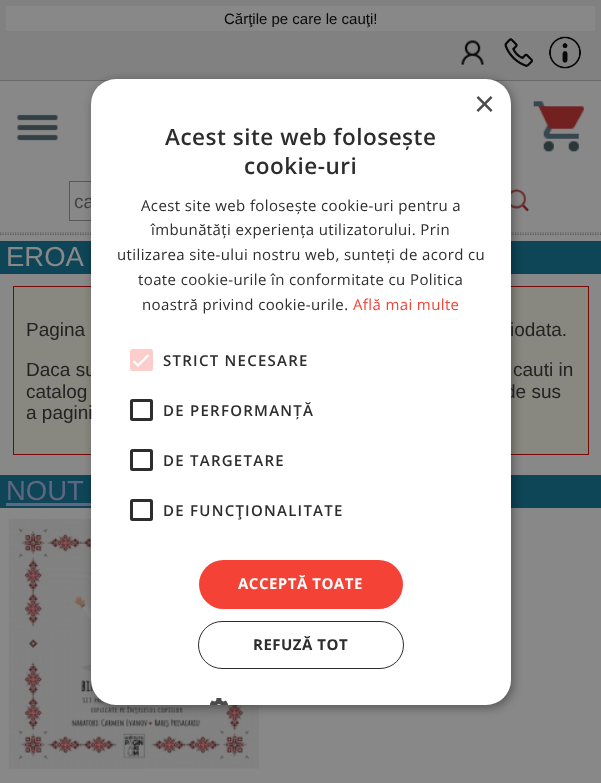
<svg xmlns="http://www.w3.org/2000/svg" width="601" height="783">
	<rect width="100%" height="100%" fill="#888888" />
	<rect x="0" y="0" width="601" height="80" fill="#818181" />
	<rect x="0" y="80" width="601" height="1" fill="#696969" />
	<rect x="6" y="6" width="589" height="25" fill="#888888" />
	<text x="224" y="24" font-family="Liberation Sans" font-size="15" fill="#090909">Cărţile pe care le cauţi!</text>
	<image x="461" y="40" width="23" height="25" href="assets/img1.png" />
	<image x="504" y="38" width="29" height="29" href="assets/img2.png" />
	<image x="549" y="36" width="32" height="33" href="assets/img3.png" />
	<image x="16" y="114" width="42" height="27" href="assets/img4.png" />
	<image x="533" y="101" width="51" height="51" href="assets/img5.png" />
	<rect x="69.5" y="181.5" width="430" height="39" fill="none" stroke="#595959" />
	<text x="74" y="208" font-family="Liberation Sans" font-size="19" fill="#434343">ca</text>
	<image x="511" y="189" width="19" height="23" href="assets/img6.png" />
	<path d="M0 233H601" fill="none" stroke="#595959" stroke-width="1.2" stroke-dasharray="1.25 1.25" />
	<path d="M0 234.5H601" fill="none" stroke="#595959" stroke-width="1.2" stroke-dasharray="1.25 1.25" />
	<rect x="0" y="241" width="601" height="33" fill="#0E4557" />
	<rect x="13.5" y="286.5" width="575" height="168" fill="#888881" stroke="#770909" />
	<rect x="0" y="475" width="601" height="33" fill="#0E4557" />
	<rect x="6" y="503" width="85" height="3" fill="#5E6680" />
	<image x="8" y="518" width="251" height="251" href="assets/img8.png" />
	<rect x="93" y="81" width="420" height="627" rx="25" fill="#000000" fill-opacity="0.35" filter="blur(5px)" />
	<g font-family="Liberation Sans" font-size="19" fill="#222222">
		<text x="26" y="376">Daca su</text>
		<text x="505" y="398">de sus</text>
	</g>
	<rect x="91" y="79" width="420" height="626" rx="25" fill="#FFFFFF" />
	<text x="474" y="116" font-family="Liberation Sans" font-size="36" fill="#4D4D4D">×</text>
	<g font-family="Open Sans" font-size="22.5" font-weight="600" letter-spacing="0.5" fill="#2D2D2D">
		<text x="165" y="145">Acest site web folosește</text>
		<text x="244" y="174">cookie-uri</text>
	</g>
	<g font-family="Open Sans" font-size="15" letter-spacing="0.38" fill="#2D2D2D">
		<text x="141" y="211">Acest site web folosește cookie-uri pentru a</text>
		<text x="151" y="235">îmbunătăți experiența utilizatorului. Prin</text>
		<text x="117" y="260">utilizarea site-ului nostru web, sunteți de acord cu</text>
		<text x="138" y="285">toate cookie-urile în conformitate cu Politica</text>
		<text x="142" y="310">noastră privind cookie-urile.</text>
	</g>
	<text x="353" y="310" font-family="Open Sans" font-size="15" letter-spacing="0.38" fill="#F44336">Află mai multe</text>
	<rect x="130" y="349" width="23" height="22" rx="2.5" fill="#FCCECB" />
	<path d="M133.5 361L138 365.5L148.5 355" fill="none" stroke="#FFFFFF" stroke-width="2.3" />
	<text x="163" y="366" font-family="Open Sans" font-size="15" font-weight="600" letter-spacing="1.25" fill="#2D2D2D">STRICT NECESARE</text>
	<rect x="131.5" y="400.5" width="20" height="19" rx="1" fill="none" stroke="#2D2D2D" stroke-width="3" />
	<text x="163" y="416" font-family="Open Sans" font-size="15" font-weight="600" letter-spacing="1.25" fill="#2D2D2D">DE PERFORMANȚĂ</text>
	<rect x="131.5" y="450.5" width="20" height="19" rx="1" fill="none" stroke="#2D2D2D" stroke-width="3" />
	<text x="163" y="466" font-family="Open Sans" font-size="15" font-weight="600" letter-spacing="1.25" fill="#2D2D2D">DE TARGETARE</text>
	<rect x="131.5" y="500.5" width="20" height="19" rx="1" fill="none" stroke="#2D2D2D" stroke-width="3" />
	<text x="163" y="516" font-family="Open Sans" font-size="15" font-weight="600" letter-spacing="1.25" fill="#2D2D2D">DE FUNCŢIONALITATE</text>
	<rect x="199" y="560" width="204" height="49" rx="24.5" fill="#F44336" />
	<text x="238" y="589" font-family="Open Sans" font-size="15" font-weight="700" letter-spacing="0.5" fill="#FFFFFF">ACCEPTĂ TOATE</text>
	<rect x="198.5" y="621.5" width="205" height="47" rx="23.5" fill="none" stroke="#2D2D2D" />
	<text x="253" y="650" font-family="Open Sans" font-size="15" font-weight="700" letter-spacing="0.5" fill="#2D2D2D">REFUZĂ TOT</text>
	<image x="210" y="698" width="19" height="7" href="assets/img7.png" />
	<text x="6" y="266" font-family="Liberation Sans" font-size="27.5" fill="#888888">EROA</text>
	<g font-family="Liberation Sans" font-size="19" fill="#222222">
		<text x="26" y="336">Pagina</text>
		<text x="510" y="336">iodata.</text>
		<text x="513" y="376">cauti in</text>
		<text x="26" y="398">catalog</text>
		<text x="26" y="419">a pagini</text>
	</g>
	<text x="6" y="500" font-family="Liberation Sans" font-size="27.5" fill="#5E6680">NOUT</text>
</svg>
